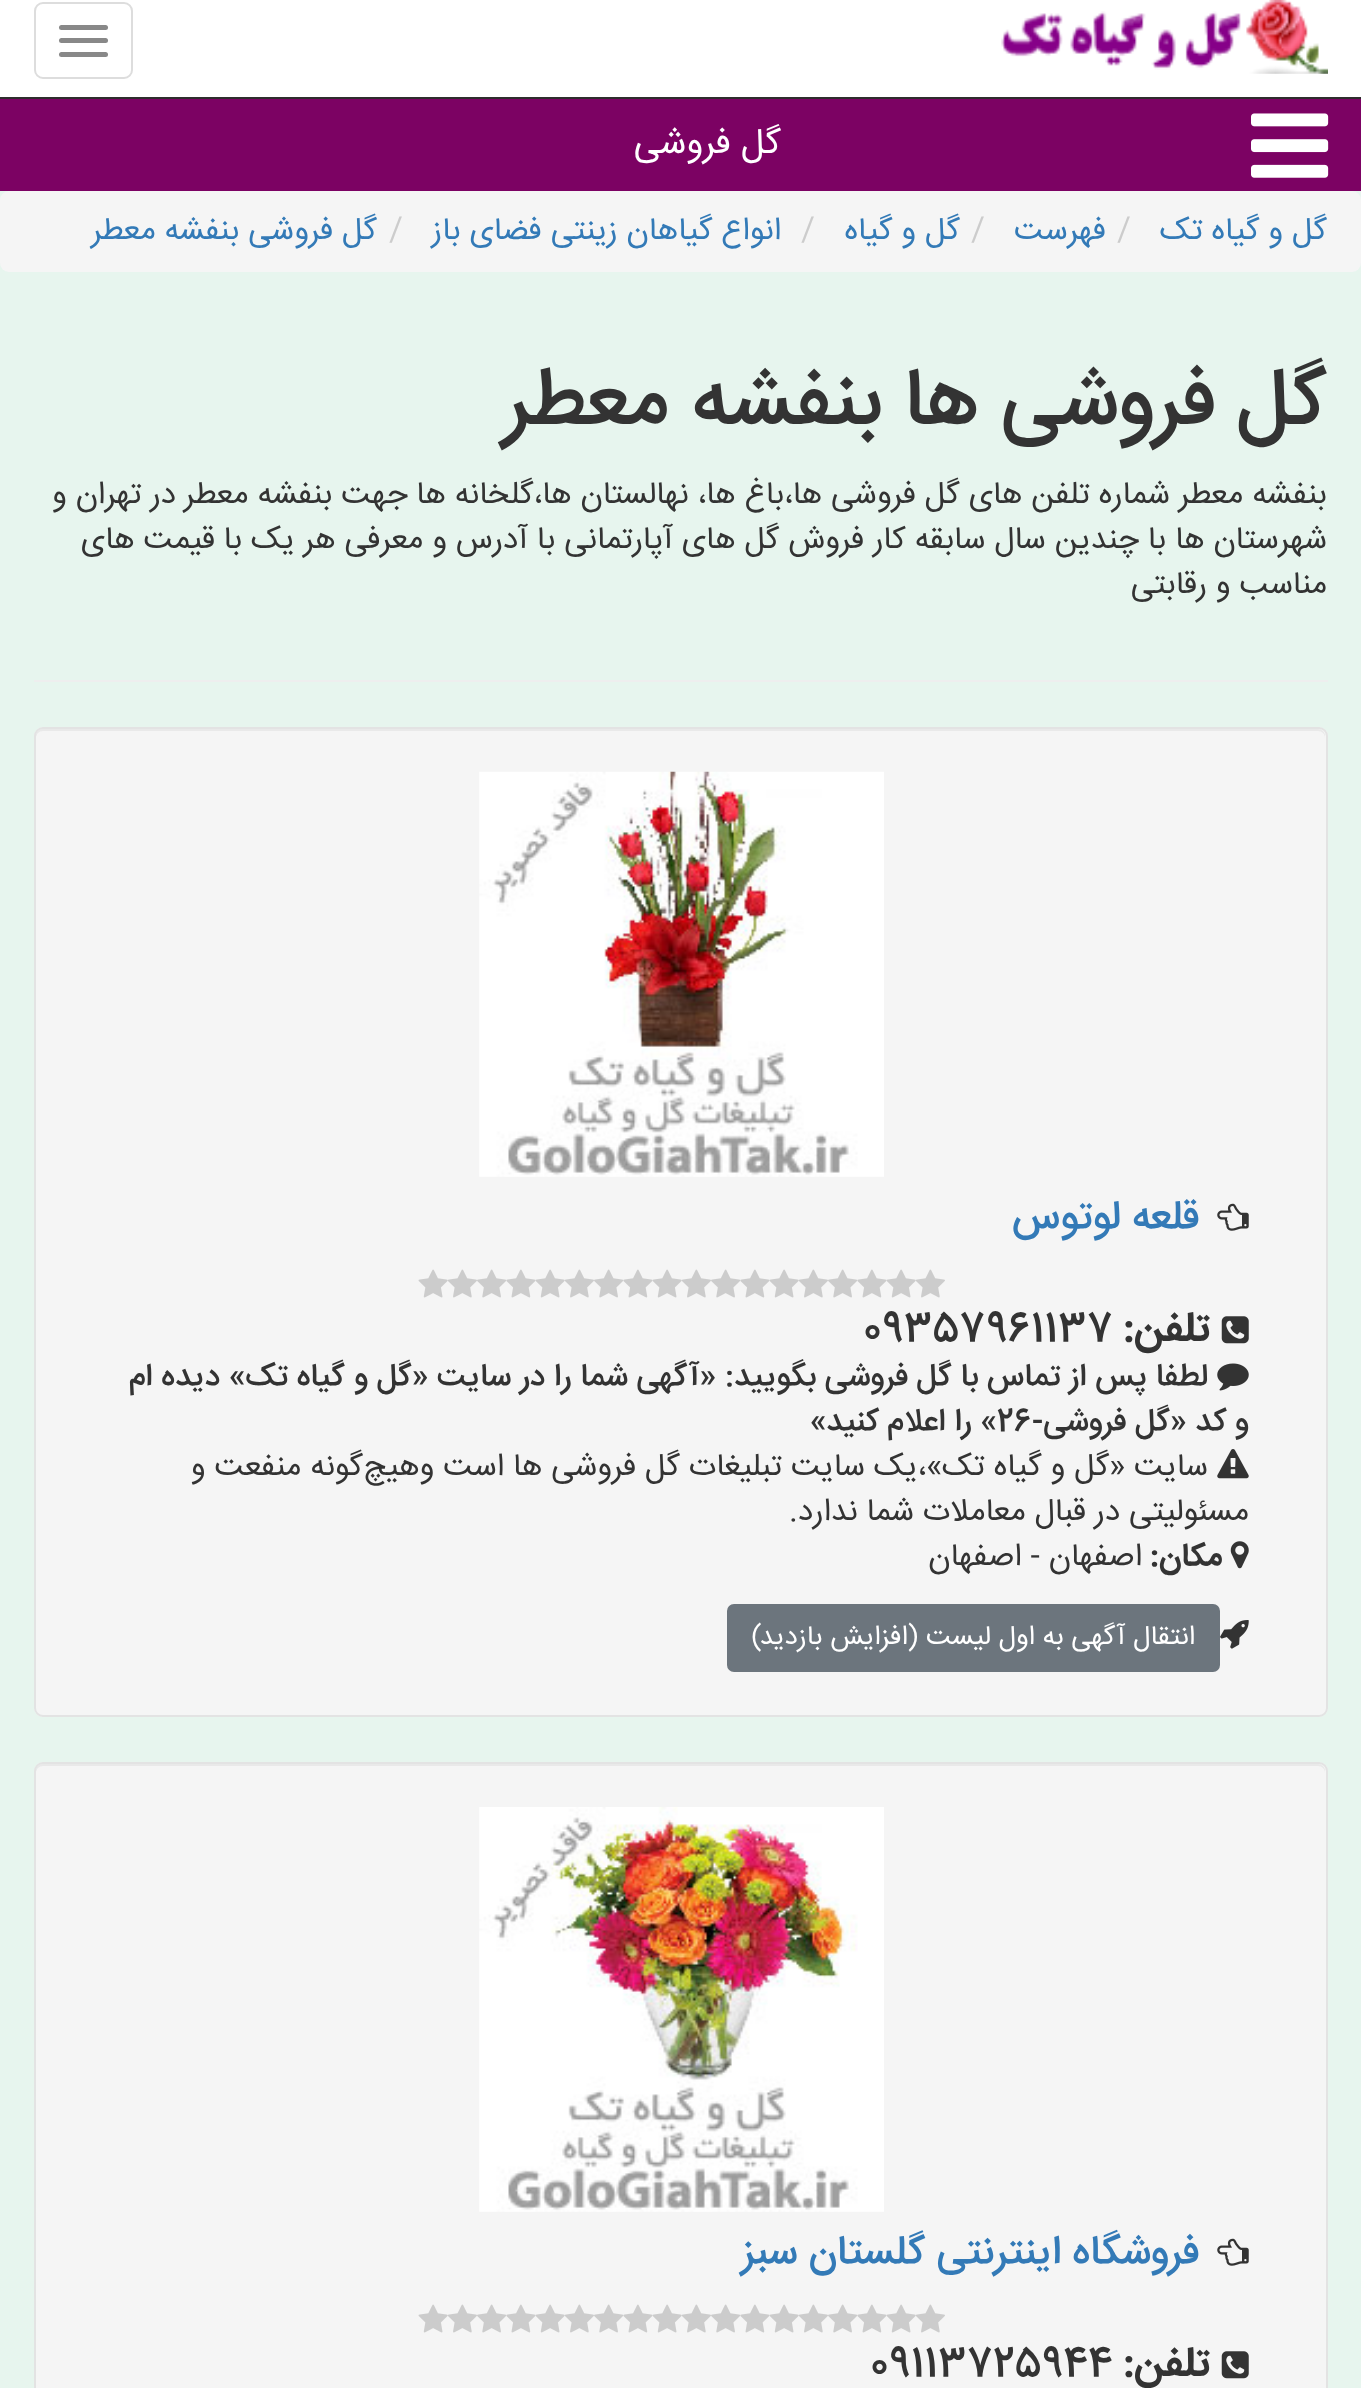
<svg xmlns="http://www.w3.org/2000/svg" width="1361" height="2388">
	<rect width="100%" height="100%" fill="#E7F5EE" />
	<rect x="0" y="0" width="1361" height="97" fill="#FFFFFF" />
	<rect x="0" y="97" width="1361" height="2" fill="#2F2D2D" />
	<image x="1001" y="0" width="327" height="74" href="assets/img1.png" />
	<rect x="35" y="3" width="97" height="75" rx="8" fill="none" stroke="#DDDDDD" stroke-width="2" />
	<rect x="59" y="25" width="49" height="5" rx="2.5" fill="#888888" />
	<rect x="59" y="38" width="49" height="5" rx="2.5" fill="#888888" />
	<rect x="59" y="52" width="49" height="5" rx="2.5" fill="#888888" />
	<rect x="0" y="99" width="1361" height="92" fill="#7C0263" />
	<image x="1251" y="113" width="78" height="65" href="assets/img2.png" />
	<text x="781" y="153" font-family="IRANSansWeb" font-size="36" direction="rtl" fill="#FFFFFF">گل فروشی</text>
	<rect x="0" y="191" width="1361" height="81" rx="9" fill="#F5F5F5" />
	<text x="1327" y="239" font-family="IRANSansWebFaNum" font-size="31.5" direction="rtl" fill="#337AB7">گل و گیاه تک</text>
	<text x="1117" y="239" font-family="IRANSansWebFaNum" font-size="31.5" fill="#CCCCCC">/</text>
	<text x="1106" y="239" font-family="IRANSansWebFaNum" font-size="31.5" direction="rtl" fill="#337AB7">فهرست</text>
	<text x="971" y="239" font-family="IRANSansWebFaNum" font-size="31.5" fill="#CCCCCC">/</text>
	<text x="960" y="239" font-family="IRANSansWebFaNum" font-size="31.5" direction="rtl" fill="#337AB7">گل و گیاه</text>
	<text x="801" y="239" font-family="IRANSansWebFaNum" font-size="31.5" fill="#CCCCCC">/</text>
	<text x="781" y="239" font-family="IRANSansWebFaNum" font-size="31.5" direction="rtl" fill="#337AB7">انواع گیاهان زینتی فضای باز</text>
	<text x="389" y="239" font-family="IRANSansWebFaNum" font-size="31.5" fill="#CCCCCC">/</text>
	<text x="377" y="239" font-family="IRANSansWebFaNum" font-size="31.5" direction="rtl" fill="#337AB7">گل فروشی بنفشه معطر</text>
	<text x="1327" y="423" font-family="IRANSansWebFaNum" font-size="81" font-weight="500" direction="rtl" fill="#333333">گل فروشی ها بنفشه معطر</text>
	<g font-family="IRANSansWebFaNum" font-size="31.5" direction="rtl" fill="#333333">
		<text x="1327" y="503">بنفشه معطر</text>
		<text x="1170" y="503">شماره تلفن های گل فروشی ها،باغ ها، نهالستان ها،گلخانه ها جهت بنفشه معطر</text>
		<text x="176" y="503">در تهران و</text>
		<text x="1327" y="548">شهرستان ها با چندین سال سابقه کار فروش گل های آپارتمانی با آدرس و معرفی هر یک با قیمت های</text>
		<text x="1327" y="593">مناسب و رقابتی</text>
	</g>
	<rect x="34" y="680" width="1294" height="2" fill="#EEEEEE" />
	<rect x="34" y="727" width="1294" height="990" rx="9" fill="#F5F5F5" />
	<path d="M43 731H1318C1322 731 1325 734 1325 738V736C1325 732 1322 729 1318 729H43C39 729 36 732 36 736V738C36 734 39 731 43 731Z" fill="#E9E9E9" />
	<rect x="35" y="728" width="1292" height="988" rx="8" fill="none" stroke="#E3E3E3" stroke-width="2" />
	<image x="479" y="771" width="405" height="406" href="assets/img3.png" />
	<image x="1217" y="1203" width="32" height="28" href="assets/img4.png" />
	<text x="1199" y="1228" font-family="IRANSansWebFaNum" font-size="40.5" font-weight="500" direction="rtl" fill="#337AB7">قلعه لوتوس</text>
	<image x="915" y="1269" width="30" height="29" href="assets/img5.png" />
	<image x="886" y="1269" width="30" height="29" href="assets/img6.png" />
	<image x="857" y="1269" width="30" height="29" href="assets/img7.png" />
	<image x="828" y="1269" width="29" height="29" href="assets/img8.png" />
	<image x="798" y="1269" width="30" height="29" href="assets/img5.png" />
	<image x="769" y="1269" width="30" height="29" href="assets/img6.png" />
	<image x="740" y="1269" width="30" height="29" href="assets/img7.png" />
	<image x="711" y="1269" width="29" height="29" href="assets/img8.png" />
	<image x="681" y="1269" width="30" height="29" href="assets/img5.png" />
	<image x="652" y="1269" width="30" height="29" href="assets/img6.png" />
	<image x="623" y="1269" width="30" height="29" href="assets/img7.png" />
	<image x="594" y="1269" width="29" height="29" href="assets/img8.png" />
	<image x="564" y="1269" width="30" height="29" href="assets/img5.png" />
	<image x="535" y="1269" width="30" height="29" href="assets/img6.png" />
	<image x="506" y="1269" width="30" height="29" href="assets/img7.png" />
	<image x="477" y="1269" width="29" height="29" href="assets/img8.png" />
	<image x="447" y="1269" width="30" height="29" href="assets/img5.png" />
	<image x="418" y="1269" width="30" height="29" href="assets/img6.png" />
	<image x="1221" y="1316" width="28" height="28" href="assets/img9.png" />
	<text x="1210" y="1340" font-family="IRANSansWebFaNum" font-size="40.5" font-weight="700" direction="rtl" fill="#333333">تلفن:</text>
	<text x="863" y="1340" font-family="IRANSansWebFaNum" font-size="40.5" font-weight="500" fill="#333333">09357961137</text>
	<image x="1217" y="1363" width="32" height="28" href="assets/img10.png" />
	<g font-family="IRANSansWebFaNum" font-size="31.5" font-weight="500" direction="rtl" fill="#333333">
		<text x="1208" y="1385">لطفا پس از تماس با گل فروشی بگویید: «آگهی شما را در سایت «گل و گیاه تک» دیده ام</text>
		<text x="1249" y="1430">و کد «گل فروشی-</text>
	</g>
	<text x="997" y="1430" font-family="IRANSansWebFaNum" font-size="31.5" font-weight="500" fill="#333333">26</text>
	<text x="997" y="1430" font-family="IRANSansWebFaNum" font-size="31.5" font-weight="500" direction="rtl" fill="#333333">» را اعلام کنید»</text>
	<image x="1217" y="1449" width="32" height="30" href="assets/img11.png" />
	<g font-family="IRANSansWebFaNum" font-size="31.5" direction="rtl" fill="#333333">
		<text x="1208" y="1475">سایت «گل و گیاه تک»،یک سایت تبلیغات گل فروشی ها است وهیچ‌گونه منفعت و</text>
		<text x="1249" y="1520">مسئولیتی در قبال معاملات شما ندارد.</text>
	</g>
	<image x="1230" y="1541" width="19" height="28" href="assets/img12.png" />
	<text x="1222" y="1565" font-family="IRANSansWebFaNum" font-size="31.5" font-weight="700" direction="rtl" fill="#333333">مکان:</text>
	<text x="1142" y="1565" font-family="IRANSansWebFaNum" font-size="31.5" direction="rtl" fill="#333333">اصفهان - اصفهان</text>
	<image x="1220" y="1620" width="29" height="29" href="assets/img13.png" />
	<rect x="728" y="1605" width="491" height="66" rx="6" fill="#6C757D" stroke="#6C757D" stroke-width="2" />
	<text x="1195" y="1644" font-family="IRANSansWebFaNum" font-size="27" direction="rtl" fill="#FFFFFF">انتقال آگهی به اول لیست (افزایش بازدید)</text>
	<rect x="34" y="1762" width="1294" height="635" rx="9" fill="#F5F5F5" />
	<path d="M43 1766H1318C1322 1766 1325 1769 1325 1773V1771C1325 1767 1322 1764 1318 1764H43C39 1764 36 1767 36 1771V1773C36 1769 39 1766 43 1766Z" fill="#E9E9E9" />
	<rect x="35" y="1763" width="1292" height="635" rx="8" fill="none" stroke="#E3E3E3" stroke-width="2" />
	<image x="479" y="1807" width="405" height="405" href="assets/img14.png" />
	<image x="1217" y="2238" width="32" height="28" href="assets/img4.png" />
	<text x="1199" y="2263" font-family="IRANSansWebFaNum" font-size="40.5" font-weight="500" direction="rtl" fill="#337AB7">فروشگاه اینترنتی گلستان سبز</text>
	<image x="915" y="2304" width="30" height="29" href="assets/img5.png" />
	<image x="886" y="2304" width="30" height="29" href="assets/img6.png" />
	<image x="857" y="2304" width="30" height="29" href="assets/img7.png" />
	<image x="828" y="2304" width="29" height="29" href="assets/img8.png" />
	<image x="798" y="2304" width="30" height="29" href="assets/img5.png" />
	<image x="769" y="2304" width="30" height="29" href="assets/img6.png" />
	<image x="740" y="2304" width="30" height="29" href="assets/img7.png" />
	<image x="711" y="2304" width="29" height="29" href="assets/img8.png" />
	<image x="681" y="2304" width="30" height="29" href="assets/img5.png" />
	<image x="652" y="2304" width="30" height="29" href="assets/img6.png" />
	<image x="623" y="2304" width="30" height="29" href="assets/img7.png" />
	<image x="594" y="2304" width="29" height="29" href="assets/img8.png" />
	<image x="564" y="2304" width="30" height="29" href="assets/img5.png" />
	<image x="535" y="2304" width="30" height="29" href="assets/img6.png" />
	<image x="506" y="2304" width="30" height="29" href="assets/img7.png" />
	<image x="477" y="2304" width="29" height="29" href="assets/img8.png" />
	<image x="447" y="2304" width="30" height="29" href="assets/img5.png" />
	<image x="418" y="2304" width="30" height="29" href="assets/img6.png" />
	<image x="1221" y="2351" width="28" height="28" href="assets/img9.png" />
	<text x="1210" y="2375" font-family="IRANSansWebFaNum" font-size="40.5" font-weight="700" direction="rtl" fill="#333333">تلفن:</text>
	<text x="870" y="2375" font-family="IRANSansWebFaNum" font-size="40.5" font-weight="500" fill="#333333">09113725944</text>
</svg>
